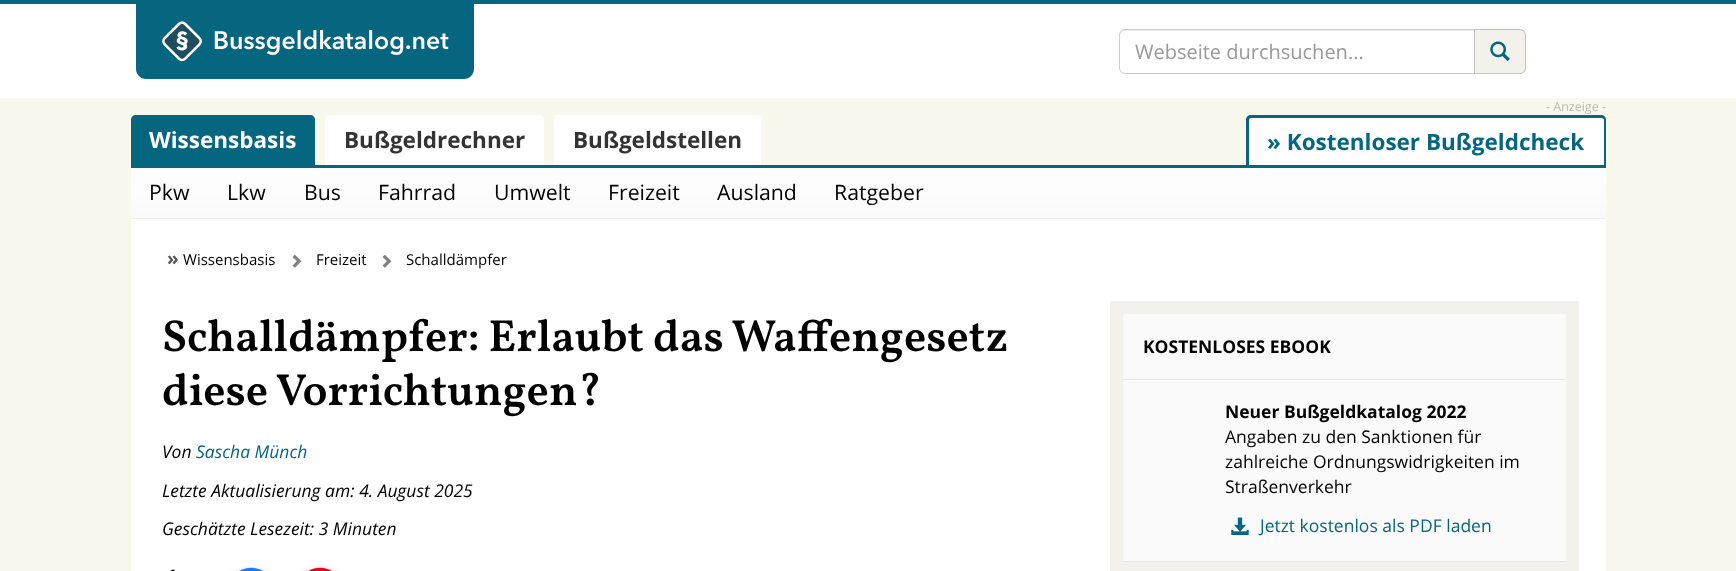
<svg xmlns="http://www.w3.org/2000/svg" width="1736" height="571">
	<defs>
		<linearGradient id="g1" gradientUnits="userSpaceOnUse" x1="869" y1="167" x2="869" y2="218"><stop offset="0" stop-color="#FFFFFF" /><stop offset="1" stop-color="#F9F9F9" /></linearGradient>
	</defs>
	<rect width="100%" height="100%" fill="#F9F8ED" />
	<rect x="0" y="0" width="1736" height="4" fill="#066680" />
	<rect x="0" y="4" width="1736" height="94" fill="#FFFFFF" />
	<path d="M136 4H474V69C474 74.5 469.5 79 464 79H146C140.5 79 136 74.5 136 69Z" fill="#066680" />
	<image x="161" y="20" width="288" height="42" href="assets/img1.png" />
	<path d="M1125 31H1474V30H1125C1122 30 1120 33 1120 36C1120 33 1122 31 1125 31Z" fill="#ECECEC" />
	<path d="M1125 29.5H1474.5V73.5H1125C1122 73.5 1119.5 71 1119.5 68V35C1119.5 32 1122 29.5 1125 29.5Z" fill="none" stroke="#000000" stroke-opacity="0.2" />
	<text x="1135" y="59" font-family="Open Sans" font-size="20" fill="#999999">Webseite durchsuchen...</text>
	<path d="M1474 29H1520C1523.5 29 1526 31.5 1526 35V68C1526 71.5 1523.5 74 1520 74H1474Z" fill="#F2F1EC" />
	<path d="M1474.5 29.5H1520C1523 29.5 1525.5 32 1525.5 35V68C1525.5 71 1523 73.5 1520 73.5H1474.5Z" fill="none" stroke="#000000" stroke-opacity="0.2" />
	<image x="1490" y="41" width="20" height="20" href="assets/img2.png" />
	<rect x="131" y="165" width="1475" height="3" fill="#066680" />
	<path d="M136 115H310C313 115 315 117 315 120V165H131V120C131 117 133 115 136 115Z" fill="#066680" />
	<text x="149" y="148" font-family="Open Sans" font-size="22.5" font-weight="700" fill="#FFFFFF">Wissensbasis</text>
	<path d="M330 115H539C542 115 544 117 544 120V165H325V120C325 117 327 115 330 115Z" fill="#FFFFFF" />
	<text x="344" y="148" font-family="Open Sans" font-size="22.5" font-weight="700" fill="#333333">Bußgeldrechner</text>
	<path d="M559 115H756C759 115 761 117 761 120V165H554V120C554 117 556 115 559 115Z" fill="#FFFFFF" />
	<text x="573" y="148" font-family="Open Sans" font-size="22.5" font-weight="700" fill="#333333">Bußgeldstellen</text>
	<text x="1546" y="111" font-family="Open Sans" font-size="12.5" fill="#BBBAB2">- Anzeige -</text>
	<path d="M1251 115H1601C1604 115 1606 117 1606 120V165H1246V120C1246 117 1248 115 1251 115Z" fill="#FFFFFF" />
	<path d="M1251 115H1601C1604 115 1606 117 1606 120V165H1246V120C1246 117 1248 115 1251 115ZM1251 118H1601C1603 118 1604 119 1604 120V165H1249V120C1249 119 1250 118 1251 118Z" fill="#066680" fill-rule="evenodd" />
	<text x="1267" y="150" font-family="Open Sans" font-size="22.5" font-weight="700" fill="#066680">» Kostenloser Bußgeldcheck</text>
	<rect x="131" y="168" width="1475" height="50" fill="url(#g1)" />
	<rect x="131" y="218" width="1475" height="1" fill="#EEEEEE" />
	<g font-family="Open Sans" font-size="21.25" fill="#000000">
		<text x="149" y="200">Pkw</text>
		<text x="227" y="200">Lkw</text>
		<text x="304" y="200">Bus</text>
		<text x="378" y="200">Fahrrad</text>
		<text x="494" y="200">Umwelt</text>
		<text x="608" y="200">Freizeit</text>
		<text x="717" y="200">Ausland</text>
		<text x="834" y="200">Ratgeber</text>
	</g>
	<rect x="131" y="219" width="1475" height="352" fill="#FFFFFF" />
	<text x="167" y="265" font-family="Open Sans" font-size="19" font-weight="700" fill="#5A5A5A">»</text>
	<text x="183" y="265" font-family="Open Sans" font-size="15" fill="#000000">Wissensbasis</text>
	<image x="292" y="254" width="10" height="14" href="assets/img3.png" />
	<text x="316" y="265" font-family="Open Sans" font-size="15" fill="#000000">Freizeit</text>
	<image x="382" y="254" width="10" height="14" href="assets/img3.png" />
	<text x="406" y="265" font-family="Open Sans" font-size="15" fill="#000000">Schalldämpfer</text>
	<g font-family="Vollkorn" font-size="45" font-weight="600" fill="#000000">
		<text x="162" y="351">Schalldämpfer: Erlaubt das Waffengesetz</text>
		<text x="162" y="405">diese Vorrichtungen?</text>
	</g>
	<text x="162" y="458" font-family="Open Sans" font-size="17.5" font-style="italic" fill="#000000">Von</text>
	<text x="196" y="458" font-family="Open Sans" font-size="17.5" font-style="italic" fill="#066680">Sascha Münch</text>
	<g font-family="Open Sans" font-size="17.5" font-style="italic" fill="#000000">
		<text x="162" y="497">Letzte Aktualisierung am: 4. August 2025</text>
		<text x="162" y="535">Geschätzte Lesezeit: 3 Minuten</text>
	</g>
	<image x="170" y="569" width="6" height="2" href="assets/img4.png" />
	<rect x="226" y="570" width="50" height="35" rx="25" fill="#000000" fill-opacity="0.15" filter="blur(3px)" />
	<image x="239" y="567" width="25" height="4" href="assets/img5.png" />
	<rect x="295" y="570" width="50" height="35" rx="25" fill="#000000" fill-opacity="0.15" filter="blur(3px)" />
	<image x="308" y="567" width="24" height="4" href="assets/img6.png" />
	<rect x="1123" y="314" width="443" height="247" fill="#FAFAFA" />
	<rect x="1116.5" y="307.5" width="456" height="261" fill="none" stroke="#F2F1EC" stroke-width="13" />
	<rect x="1123" y="379" width="443" height="1" fill="#E6E6E6" />
	<text x="1143" y="353" font-family="Open Sans" font-size="17.5" font-weight="700" fill="#000000">KOSTENLOSES EBOOK</text>
	<rect x="1123" y="561" width="443" height="1" fill="#E6E6E6" />
	<text x="1225" y="418" font-family="Open Sans" font-size="17.5" font-weight="700" fill="#000000">Neuer Bußgeldkatalog 2022</text>
	<g font-family="Open Sans" font-size="17.5" fill="#000000">
		<text x="1225" y="443">Angaben zu den Sanktionen für</text>
		<text x="1225" y="468">zahlreiche Ordnungswidrigkeiten im</text>
		<text x="1225" y="493">Straßenverkehr</text>
	</g>
	<image x="1231" y="517" width="18" height="18" href="assets/img7.png" />
	<text x="1260" y="532" font-family="Open Sans" font-size="17.5" fill="#066680">Jetzt kostenlos als PDF laden</text>
</svg>
